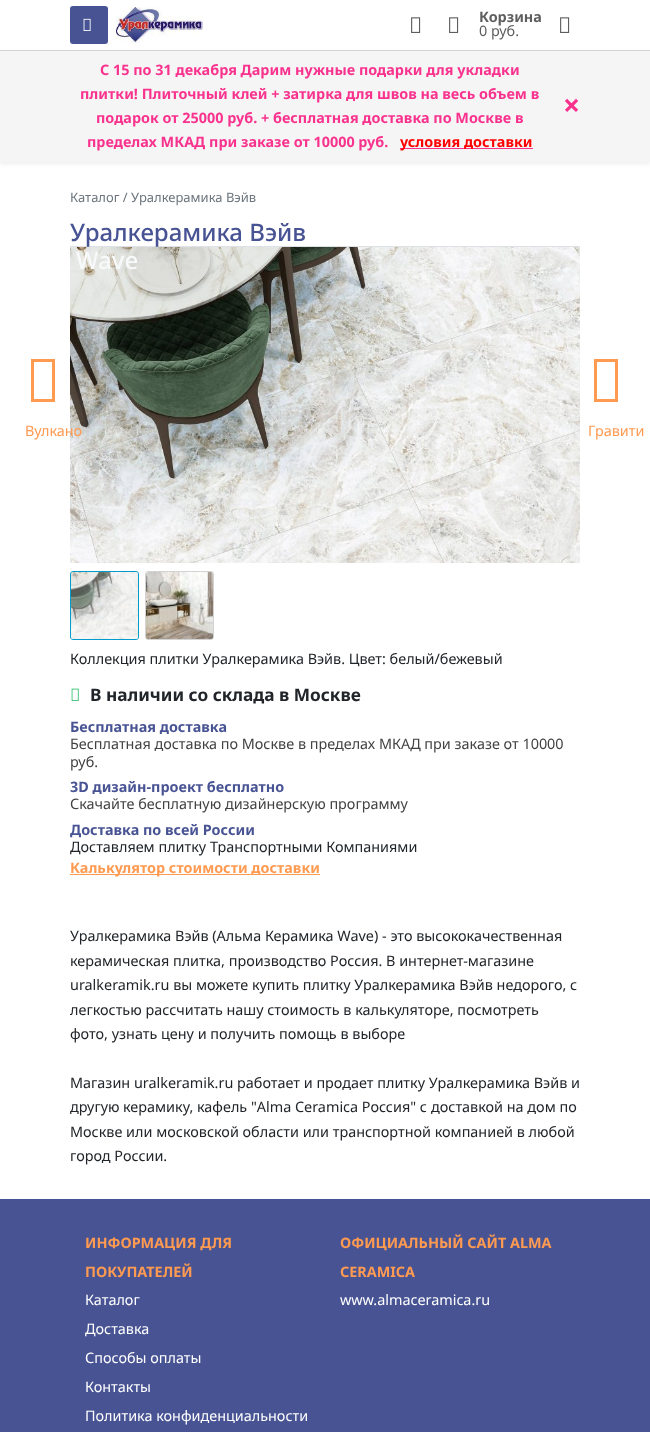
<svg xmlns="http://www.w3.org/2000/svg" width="650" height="1432">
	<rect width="100%" height="100%" fill="#FFFFFF" />
	<rect x="0" y="52" width="650" height="112" fill="#000000" fill-opacity="0.07" filter="blur(2px)" />
	<rect x="0" y="50" width="650" height="1" fill="#D3D3D3" />
	<rect x="70" y="6" width="38" height="38" rx="3" fill="#485394" />
	<image x="83" y="18" width="8" height="13" href="assets/img1.png" />
	<image x="116" y="7" width="87" height="36" href="assets/img2.png" />
	<image x="411" y="17" width="10" height="16" href="assets/img3.png" />
	<image x="449" y="17" width="10" height="16" href="assets/img3.png" />
	<text x="479" y="22" font-family="Noto Sans" font-size="14.4" font-weight="700" fill="#5F5E5E">Корзина</text>
	<text x="479" y="36" font-family="Noto Sans" font-size="14.4" fill="#5F5E5E">0 руб.</text>
	<image x="560" y="17" width="10" height="16" href="assets/img3.png" />
	<rect x="0" y="51" width="650" height="111" fill="#F5F5F5" />
	<g font-family="Noto Sans" font-size="14.4" font-weight="700" fill="#F9328E">
		<text x="100" y="75">С 15 по 31 декабря Дарим нужные подарки для укладки</text>
		<text x="80" y="99">плитки! Плиточный клей + затирка для швов на весь объем в</text>
	</g>
	<text x="563" y="116" font-family="Noto Sans" font-size="30" font-weight="700" fill="#F9328E">×</text>
	<g font-family="Noto Sans" font-size="14.4" font-weight="700" fill="#F9328E">
		<text x="96" y="123">подарок от 25000 руб. + бесплатная доставка по Москве в</text>
		<text x="87" y="147">пределах МКАД при заказе от 10000 руб.</text>
	</g>
	<rect x="400" y="148" width="133" height="1" fill="#F9328E" />
	<text x="400" y="147" font-family="Noto Sans" font-size="14.4" font-weight="700" fill="#FF0000">условия доставки</text>
	<text x="70" y="202" font-family="Noto Sans" font-size="13" fill="#6C757D">Каталог / Уралкерамика Вэйв</text>
	<rect x="70" y="246" width="510" height="1" fill="#DEE2E6" />
	<text x="70" y="241" font-family="Noto Sans" font-size="24" font-weight="500" fill="#485394">Уралкерамика Вэйв</text>
	<image x="70" y="247" width="510" height="316" href="assets/img4.png" />
	<text x="76" y="269" font-family="Noto Sans" font-size="24" font-weight="500" fill="#F8F9FA">Wave</text>
	<rect x="70.5" y="571.5" width="68" height="68" rx="2.5" fill="none" stroke="#009CCE" />
	<image x="71" y="572" width="67" height="67" href="assets/img5.png" />
	<rect x="145.5" y="571.5" width="68" height="68" rx="2.5" fill="none" stroke="#D3D3D3" />
	<image x="146" y="572" width="67" height="67" href="assets/img6.png" />
	<text x="70" y="664" font-family="Noto Sans" font-size="14.4" fill="#212529">Коллекция плитки Уралкерамика Вэйв. Цвет: белый/бежевый</text>
	<image x="71" y="688" width="8" height="13" href="assets/img7.png" />
	<text x="90" y="701" font-family="Noto Sans" font-size="17.25" font-weight="700" fill="#212529">В наличии со склада в Москве</text>
	<text x="70" y="732" font-family="Noto Sans" font-size="14.4" font-weight="700" fill="#485394">Бесплатная доставка</text>
	<g font-family="Noto Sans" font-size="14.4" fill="#424242">
		<text x="70" y="749">Бесплатная доставка по Москве в пределах МКАД при заказе от 10000</text>
		<text x="70" y="767">руб.</text>
	</g>
	<text x="70" y="792" font-family="Noto Sans" font-size="14.4" font-weight="700" fill="#485394">3D дизайн-проект бесплатно</text>
	<text x="70" y="809" font-family="Noto Sans" font-size="14.4" fill="#424242">Скачайте бесплатную дизайнерскую программу</text>
	<text x="70" y="835" font-family="Noto Sans" font-size="14.4" font-weight="700" fill="#485394">Доставка по всей России</text>
	<text x="70" y="852" font-family="Noto Sans" font-size="14.4" fill="#212529">Доставляем плитку Транспортными Компаниями</text>
	<rect x="70" y="874" width="250" height="1" fill="#FF9A51" />
	<text x="70" y="873" font-family="Noto Sans" font-size="14.4" font-weight="700" fill="#FF9A51">Калькулятор стоимости доставки</text>
	<path d="M31 402V359H55V402ZM34 399H52V362H34Z" fill="#FF9A51" />
	<text x="25" y="436" font-family="Noto Sans" font-size="14.4" fill="#FF9A51">Вулкано</text>
	<path d="M594 402V359H618V402ZM597 399H615V362H597Z" fill="#FF9A51" />
	<text x="588" y="436" font-family="Noto Sans" font-size="14.4" fill="#FF9A51">Гравити</text>
	<g font-family="Noto Sans" font-size="14.4" fill="#212529">
		<text x="70" y="941">Уралкерамика Вэйв (Альма Керамика Wave) - это высококачественная</text>
		<text x="70" y="966">керамическая плитка, производство Россия. В интернет-магазине</text>
		<text x="70" y="990">uralkeramik.ru вы можете купить плитку Уралкерамика Вэйв недорого, с</text>
		<text x="70" y="1015">легкостью рассчитать нашу стоимость в калькуляторе, посмотреть</text>
		<text x="70" y="1039">фото, узнать цену и получить помощь в выборе</text>
		<text x="70" y="1088">Магазин uralkeramik.ru работает и продает плитку Уралкерамика Вэйв и</text>
		<text x="70" y="1112">другую</text>
		<text x="123" y="1112">керамику, кафель "Alma Ceramica Россия" с</text>
		<text x="431" y="1112">доставкой на дом по</text>
		<text x="70" y="1137">Москве или московской области или транспортной компанией в любой</text>
		<text x="70" y="1161">город России.</text>
	</g>
	<rect x="0" y="1199" width="650" height="233" fill="#485394" />
	<g font-family="Noto Sans" font-size="14.4" font-weight="700" fill="#FF9A51">
		<text x="85" y="1248">ИНФОРМАЦИЯ ДЛЯ</text>
		<text x="85" y="1277">ПОКУПАТЕЛЕЙ</text>
	</g>
	<g font-family="Noto Sans" font-size="14.4" fill="#FFFFFF">
		<text x="85" y="1305">Каталог</text>
		<text x="85" y="1334">Доставка</text>
		<text x="85" y="1363">Способы оплаты</text>
		<text x="85" y="1392">Контакты</text>
		<text x="85" y="1421">Политика конфиденциальности</text>
	</g>
	<g font-family="Noto Sans" font-size="14.4" font-weight="700" fill="#FF9A51">
		<text x="340" y="1248">ОФИЦИАЛЬНЫЙ САЙТ ALMA</text>
		<text x="340" y="1277">CERAMICA</text>
	</g>
	<text x="340" y="1305" font-family="Noto Sans" font-size="14.4" fill="#FFFFFF">www.almaceramica.ru</text>
</svg>
